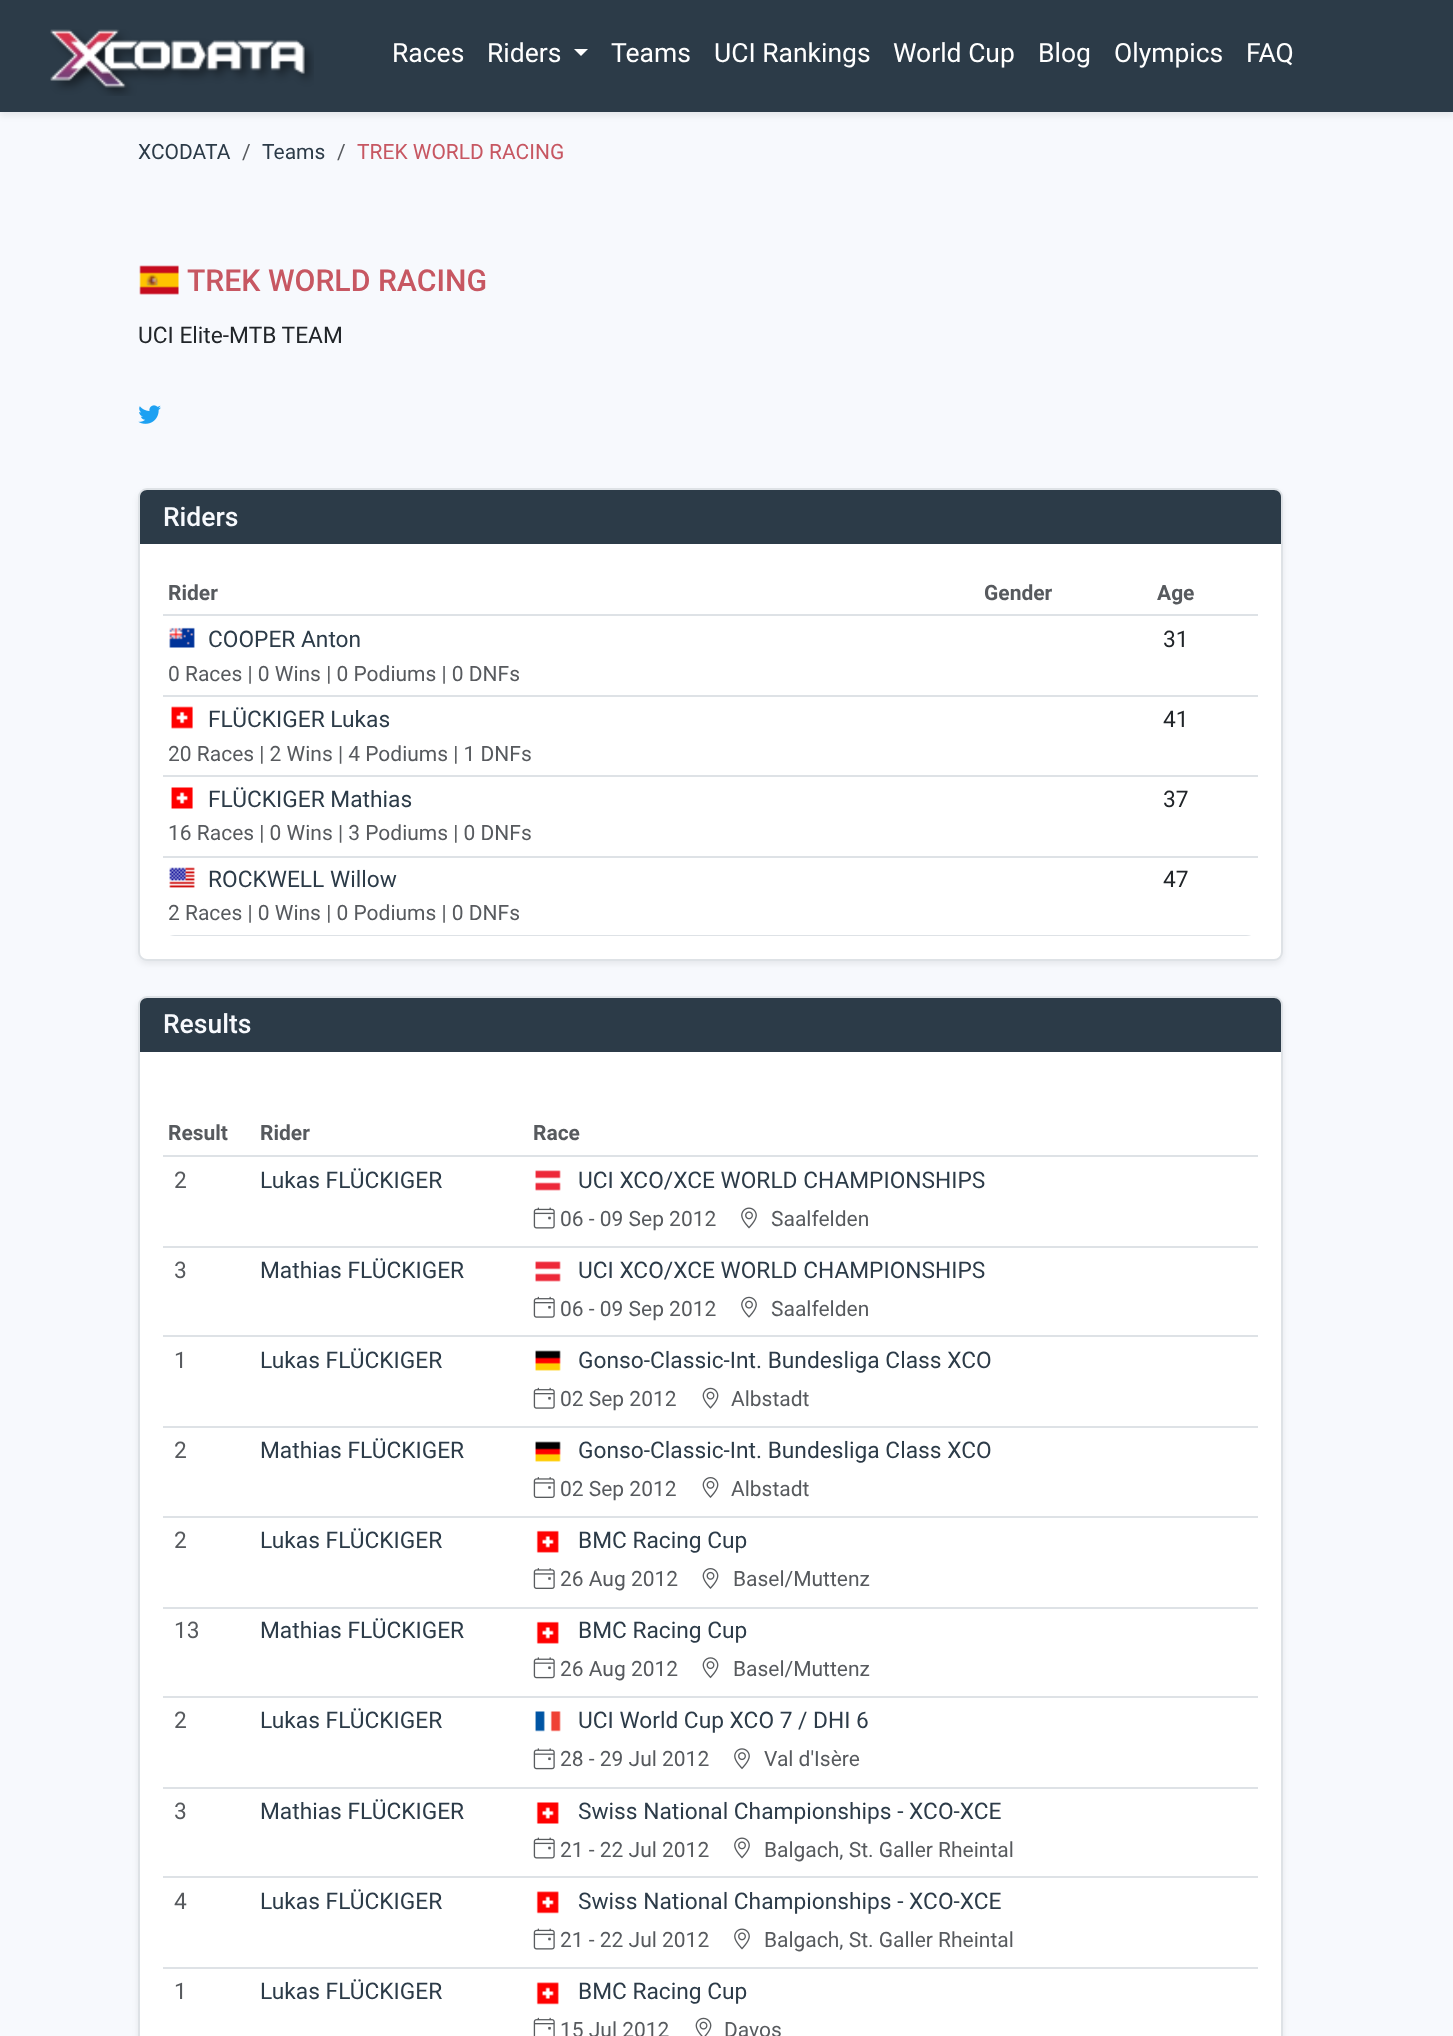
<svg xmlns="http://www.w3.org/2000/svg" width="1453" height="2036">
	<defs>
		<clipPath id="clip1"><rect x="163" y="569" width="1095" height="367" rx="12" /></clipPath>
	</defs>
	<rect width="100%" height="100%" fill="#F7F9FD" />
	<rect x="0" y="4" width="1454" height="112" fill="#000000" fill-opacity="0.07" filter="blur(3px)" />
	<rect x="0" y="0" width="1453" height="112" fill="#2C3B48" />
	<image x="50" y="29" width="264" height="67" href="assets/img1.png" />
	<g font-family="Roboto" font-size="26.5" fill="#FFFFFF">
		<text x="392" y="62">Races</text>
		<text x="487" y="62">Riders</text>
	</g>
	<path d="M574 49H588L581 56Z" fill="#FFFFFF" />
	<g font-family="Roboto" font-size="26.5" fill="#FFFFFF">
		<text x="611" y="62">Teams</text>
		<text x="714" y="62">UCI Rankings</text>
		<text x="893" y="62">World Cup</text>
		<text x="1038" y="62">Blog</text>
		<text x="1114" y="62">Olympics</text>
		<text x="1246" y="62">FAQ</text>
	</g>
	<text x="138" y="159" font-family="Roboto" font-size="21" fill="#2C3B48">XCODATA</text>
	<text x="242" y="159" font-family="Roboto" font-size="21" fill="#575A5E">/</text>
	<text x="262" y="159" font-family="Roboto" font-size="21" fill="#2C3B48">Teams</text>
	<text x="337" y="159" font-family="Roboto" font-size="21" fill="#575A5E">/</text>
	<text x="357" y="159" font-family="Roboto" font-size="21" fill="#C75762">TREK WORLD RACING</text>
	<image x="139" y="265" width="40" height="30" href="assets/img2.png" />
	<text x="187" y="291" font-family="Roboto" font-size="30.25" font-weight="500" fill="#C75762">TREK WORLD RACING</text>
	<text x="138" y="343" font-family="Roboto" font-size="22.75" fill="#212529">UCI Elite-MTB TEAM</text>
	<image x="138" y="405" width="23" height="19" href="assets/img3.png" />
	<rect x="138" y="492" width="1145" height="472" rx="9" fill="#000000" fill-opacity="0.07" filter="blur(3px)" />
	<rect x="139" y="489" width="1143" height="471" rx="8" fill="#FFFFFF" stroke="#DEE2E6" stroke-width="2" />
	<path d="M147 490H1274C1278 490 1281 493 1281 497V546H140V497C140 493 143 490 147 490Z" fill="#2C3B48" />
	<rect x="140" y="544" width="1141" height="2" fill="#FFFFFF" />
	<text x="163" y="526" font-family="Roboto" font-size="26.5" font-weight="500" fill="#F7F9FD">Riders</text>
	<g font-family="Roboto" font-size="21" font-weight="700" fill="#575A5E">
		<text x="168" y="600">Rider</text>
		<text x="984" y="600">Gender</text>
	</g>
	<rect x="163" y="614" width="1095" height="2" fill="#DEE2E6" />
	<text x="1157" y="600" font-family="Roboto" font-size="21" font-weight="700" fill="#575A5E">Age</text>
	<image x="169" y="627" width="26" height="21" href="assets/img4.png" />
	<text x="208" y="647" font-family="Roboto" font-size="22.75" fill="#2C3B48">COOPER Anton</text>
	<text x="168" y="681" font-family="Roboto" font-size="21" fill="#575A5E">0 Races | 0 Wins | 0 Podiums | 0 DNFs</text>
	<rect x="163" y="695" width="1095" height="2" fill="#DEE2E6" />
	<text x="1163" y="647" font-family="Roboto" font-size="22.75" fill="#212529">31</text>
	<image x="171" y="706" width="22" height="23" href="assets/img5.png" />
	<text x="208" y="727" font-family="Roboto" font-size="22.75" fill="#2C3B48">FLÜCKIGER Lukas</text>
	<text x="168" y="761" font-family="Roboto" font-size="21" fill="#575A5E">20 Races | 2 Wins | 4 Podiums | 1 DNFs</text>
	<rect x="163" y="775" width="1095" height="2" fill="#DEE2E6" />
	<text x="1163" y="727" font-family="Roboto" font-size="22.75" fill="#212529">41</text>
	<image x="171" y="787" width="22" height="22" href="assets/img6.png" />
	<text x="208" y="807" font-family="Roboto" font-size="22.75" fill="#2C3B48">FLÜCKIGER Mathias</text>
	<text x="168" y="840" font-family="Roboto" font-size="21" fill="#575A5E">16 Races | 0 Wins | 3 Podiums | 0 DNFs</text>
	<rect x="163" y="856" width="1095" height="2" fill="#DEE2E6" />
	<text x="1163" y="807" font-family="Roboto" font-size="22.75" fill="#212529">37</text>
	<g clip-path="url(#clip1)">
		<rect x="1150" y="935" width="108" height="1" fill="#DEE2E6" />
	</g>
	<rect x="977" y="935" width="175" height="1" fill="#DEE2E6" />
	<g clip-path="url(#clip1)">
		<rect x="163" y="935" width="815" height="1" fill="#DEE2E6" />
	</g>
	<image x="169" y="867" width="26" height="21" href="assets/img7.png" />
	<text x="208" y="887" font-family="Roboto" font-size="22.75" fill="#2C3B48">ROCKWELL Willow</text>
	<text x="168" y="920" font-family="Roboto" font-size="21" fill="#575A5E">2 Races | 0 Wins | 0 Podiums | 0 DNFs</text>
	<text x="1163" y="887" font-family="Roboto" font-size="22.75" fill="#212529">47</text>
	<rect x="138" y="999" width="1145" height="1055" rx="9" fill="#000000" fill-opacity="0.07" filter="blur(3px)" />
	<rect x="139" y="997" width="1143" height="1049" rx="8" fill="#FFFFFF" stroke="#DEE2E6" stroke-width="2" />
	<path d="M147 998H1274C1278 998 1281 1001 1281 1005V1054H140V1005C140 1001 143 998 147 998Z" fill="#2C3B48" />
	<rect x="140" y="1052" width="1141" height="2" fill="#FFFFFF" />
	<text x="163" y="1033" font-family="Roboto" font-size="26.5" font-weight="500" fill="#F7F9FD">Results</text>
	<g font-family="Roboto" font-size="21" font-weight="700" fill="#575A5E">
		<text x="168" y="1140">Result</text>
		<text x="260" y="1140">Rider</text>
	</g>
	<rect x="163" y="1155" width="1095" height="2" fill="#DEE2E6" />
	<text x="533" y="1140" font-family="Roboto" font-size="21" font-weight="700" fill="#575A5E">Race</text>
	<text x="174" y="1188" font-family="Roboto" font-size="22.75" fill="#575A5E">2</text>
	<text x="260" y="1188" font-family="Roboto" font-size="22.75" fill="#2C3B48">Lukas FLÜCKIGER</text>
	<rect x="163" y="1246" width="1095" height="2" fill="#DEE2E6" />
	<image x="535" y="1170" width="26" height="21" href="assets/img8.png" />
	<text x="578" y="1188" font-family="Roboto" font-size="22.75" fill="#2C3B48">UCI XCO/XCE WORLD CHAMPIONSHIPS</text>
	<image x="533" y="1207" width="22" height="22" href="assets/img9.png" />
	<text x="560" y="1226" font-family="Roboto" font-size="21" fill="#575A5E">06 - 09 Sep 2012</text>
	<image x="741" y="1207" width="16" height="22" href="assets/img10.png" />
	<text x="771" y="1226" font-family="Roboto" font-size="21" fill="#575A5E">Saalfelden</text>
	<text x="174" y="1278" font-family="Roboto" font-size="22.75" fill="#575A5E">3</text>
	<text x="260" y="1278" font-family="Roboto" font-size="22.75" fill="#2C3B48">Mathias FLÜCKIGER</text>
	<rect x="163" y="1335" width="1095" height="2" fill="#DEE2E6" />
	<image x="535" y="1261" width="26" height="21" href="assets/img8.png" />
	<text x="578" y="1278" font-family="Roboto" font-size="22.75" fill="#2C3B48">UCI XCO/XCE WORLD CHAMPIONSHIPS</text>
	<image x="533" y="1296" width="22" height="22" href="assets/img11.png" />
	<text x="560" y="1316" font-family="Roboto" font-size="21" fill="#575A5E">06 - 09 Sep 2012</text>
	<image x="741" y="1296" width="16" height="22" href="assets/img12.png" />
	<text x="771" y="1316" font-family="Roboto" font-size="21" fill="#575A5E">Saalfelden</text>
	<text x="174" y="1368" font-family="Roboto" font-size="22.75" fill="#575A5E">1</text>
	<text x="260" y="1368" font-family="Roboto" font-size="22.75" fill="#2C3B48">Lukas FLÜCKIGER</text>
	<rect x="163" y="1426" width="1095" height="2" fill="#DEE2E6" />
	<image x="535" y="1350" width="26" height="21" href="assets/img13.png" />
	<text x="578" y="1368" font-family="Roboto" font-size="22.75" fill="#2C3B48">Gonso-Classic-Int. Bundesliga Class XCO</text>
	<image x="533" y="1387" width="22" height="22" href="assets/img11.png" />
	<text x="560" y="1406" font-family="Roboto" font-size="21" fill="#575A5E">02 Sep 2012</text>
	<image x="702" y="1387" width="17" height="22" href="assets/img14.png" />
	<text x="731" y="1406" font-family="Roboto" font-size="21" fill="#575A5E">Albstadt</text>
	<text x="174" y="1458" font-family="Roboto" font-size="22.75" fill="#575A5E">2</text>
	<text x="260" y="1458" font-family="Roboto" font-size="22.75" fill="#2C3B48">Mathias FLÜCKIGER</text>
	<rect x="163" y="1516" width="1095" height="2" fill="#DEE2E6" />
	<image x="535" y="1441" width="26" height="21" href="assets/img13.png" />
	<text x="578" y="1458" font-family="Roboto" font-size="22.75" fill="#2C3B48">Gonso-Classic-Int. Bundesliga Class XCO</text>
	<image x="533" y="1477" width="22" height="21" href="assets/img15.png" />
	<text x="560" y="1496" font-family="Roboto" font-size="21" fill="#575A5E">02 Sep 2012</text>
	<image x="702" y="1477" width="17" height="21" href="assets/img16.png" />
	<text x="731" y="1496" font-family="Roboto" font-size="21" fill="#575A5E">Albstadt</text>
	<text x="174" y="1548" font-family="Roboto" font-size="22.75" fill="#575A5E">2</text>
	<text x="260" y="1548" font-family="Roboto" font-size="22.75" fill="#2C3B48">Lukas FLÜCKIGER</text>
	<rect x="163" y="1607" width="1095" height="2" fill="#DEE2E6" />
	<image x="536" y="1530" width="23" height="23" href="assets/img17.png" />
	<text x="578" y="1548" font-family="Roboto" font-size="22.75" fill="#2C3B48">BMC Racing Cup</text>
	<image x="533" y="1568" width="22" height="21" href="assets/img15.png" />
	<text x="560" y="1586" font-family="Roboto" font-size="21" fill="#575A5E">26 Aug 2012</text>
	<image x="702" y="1568" width="17" height="21" href="assets/img16.png" />
	<text x="733" y="1586" font-family="Roboto" font-size="21" fill="#575A5E">Basel/Muttenz</text>
	<text x="174" y="1638" font-family="Roboto" font-size="22.75" fill="#575A5E">13</text>
	<text x="260" y="1638" font-family="Roboto" font-size="22.75" fill="#2C3B48">Mathias FLÜCKIGER</text>
	<rect x="163" y="1696" width="1095" height="2" fill="#DEE2E6" />
	<image x="536" y="1621" width="23" height="23" href="assets/img17.png" />
	<text x="578" y="1638" font-family="Roboto" font-size="22.75" fill="#2C3B48">BMC Racing Cup</text>
	<image x="533" y="1657" width="22" height="22" href="assets/img18.png" />
	<text x="560" y="1676" font-family="Roboto" font-size="21" fill="#575A5E">26 Aug 2012</text>
	<image x="702" y="1657" width="17" height="22" href="assets/img19.png" />
	<text x="733" y="1676" font-family="Roboto" font-size="21" fill="#575A5E">Basel/Muttenz</text>
	<text x="174" y="1728" font-family="Roboto" font-size="22.75" fill="#575A5E">2</text>
	<text x="260" y="1728" font-family="Roboto" font-size="22.75" fill="#2C3B48">Lukas FLÜCKIGER</text>
	<rect x="163" y="1787" width="1095" height="2" fill="#DEE2E6" />
	<image x="535" y="1711" width="26" height="21" href="assets/img20.png" />
	<text x="578" y="1728" font-family="Roboto" font-size="22.75" fill="#2C3B48">UCI World Cup XCO 7 / DHI 6</text>
	<image x="533" y="1748" width="22" height="22" href="assets/img18.png" />
	<text x="560" y="1766" font-family="Roboto" font-size="21" fill="#575A5E">28 - 29 Jul 2012</text>
	<image x="734" y="1748" width="16" height="22" href="assets/img21.png" />
	<text x="764" y="1766" font-family="Roboto" font-size="21" fill="#575A5E">Val d'Isère</text>
	<text x="174" y="1819" font-family="Roboto" font-size="22.75" fill="#575A5E">3</text>
	<text x="260" y="1819" font-family="Roboto" font-size="22.75" fill="#2C3B48">Mathias FLÜCKIGER</text>
	<rect x="163" y="1876" width="1095" height="2" fill="#DEE2E6" />
	<image x="536" y="1802" width="23" height="22" href="assets/img22.png" />
	<text x="578" y="1819" font-family="Roboto" font-size="22.75" fill="#2C3B48">Swiss National Championships - XCO-XCE</text>
	<image x="533" y="1837" width="22" height="22" href="assets/img9.png" />
	<text x="560" y="1857" font-family="Roboto" font-size="21" fill="#575A5E">21 - 22 Jul 2012</text>
	<image x="734" y="1837" width="16" height="22" href="assets/img10.png" />
	<text x="764" y="1857" font-family="Roboto" font-size="21" fill="#575A5E">Balgach, St. Galler Rheintal</text>
	<text x="174" y="1909" font-family="Roboto" font-size="22.75" fill="#575A5E">4</text>
	<text x="260" y="1909" font-family="Roboto" font-size="22.75" fill="#2C3B48">Lukas FLÜCKIGER</text>
	<rect x="163" y="1967" width="1095" height="2" fill="#DEE2E6" />
	<image x="536" y="1891" width="23" height="23" href="assets/img23.png" />
	<text x="578" y="1909" font-family="Roboto" font-size="22.75" fill="#2C3B48">Swiss National Championships - XCO-XCE</text>
	<image x="533" y="1928" width="22" height="22" href="assets/img9.png" />
	<text x="560" y="1947" font-family="Roboto" font-size="21" fill="#575A5E">21 - 22 Jul 2012</text>
	<image x="734" y="1928" width="16" height="22" href="assets/img10.png" />
	<text x="764" y="1947" font-family="Roboto" font-size="21" fill="#575A5E">Balgach, St. Galler Rheintal</text>
	<text x="174" y="1999" font-family="Roboto" font-size="22.75" fill="#575A5E">1</text>
	<text x="260" y="1999" font-family="Roboto" font-size="22.75" fill="#2C3B48">Lukas FLÜCKIGER</text>
	<image x="536" y="1982" width="23" height="23" href="assets/img24.png" />
	<text x="578" y="1999" font-family="Roboto" font-size="22.75" fill="#2C3B48">BMC Racing Cup</text>
	<image x="533" y="2017" width="22" height="19" href="assets/img25.png" />
	<text x="560" y="2037" font-family="Roboto" font-size="21" fill="#575A5E">15 Jul 2012</text>
	<image x="695" y="2017" width="17" height="19" href="assets/img26.png" />
	<text x="724" y="2037" font-family="Roboto" font-size="21" fill="#575A5E">Davos</text>
</svg>
